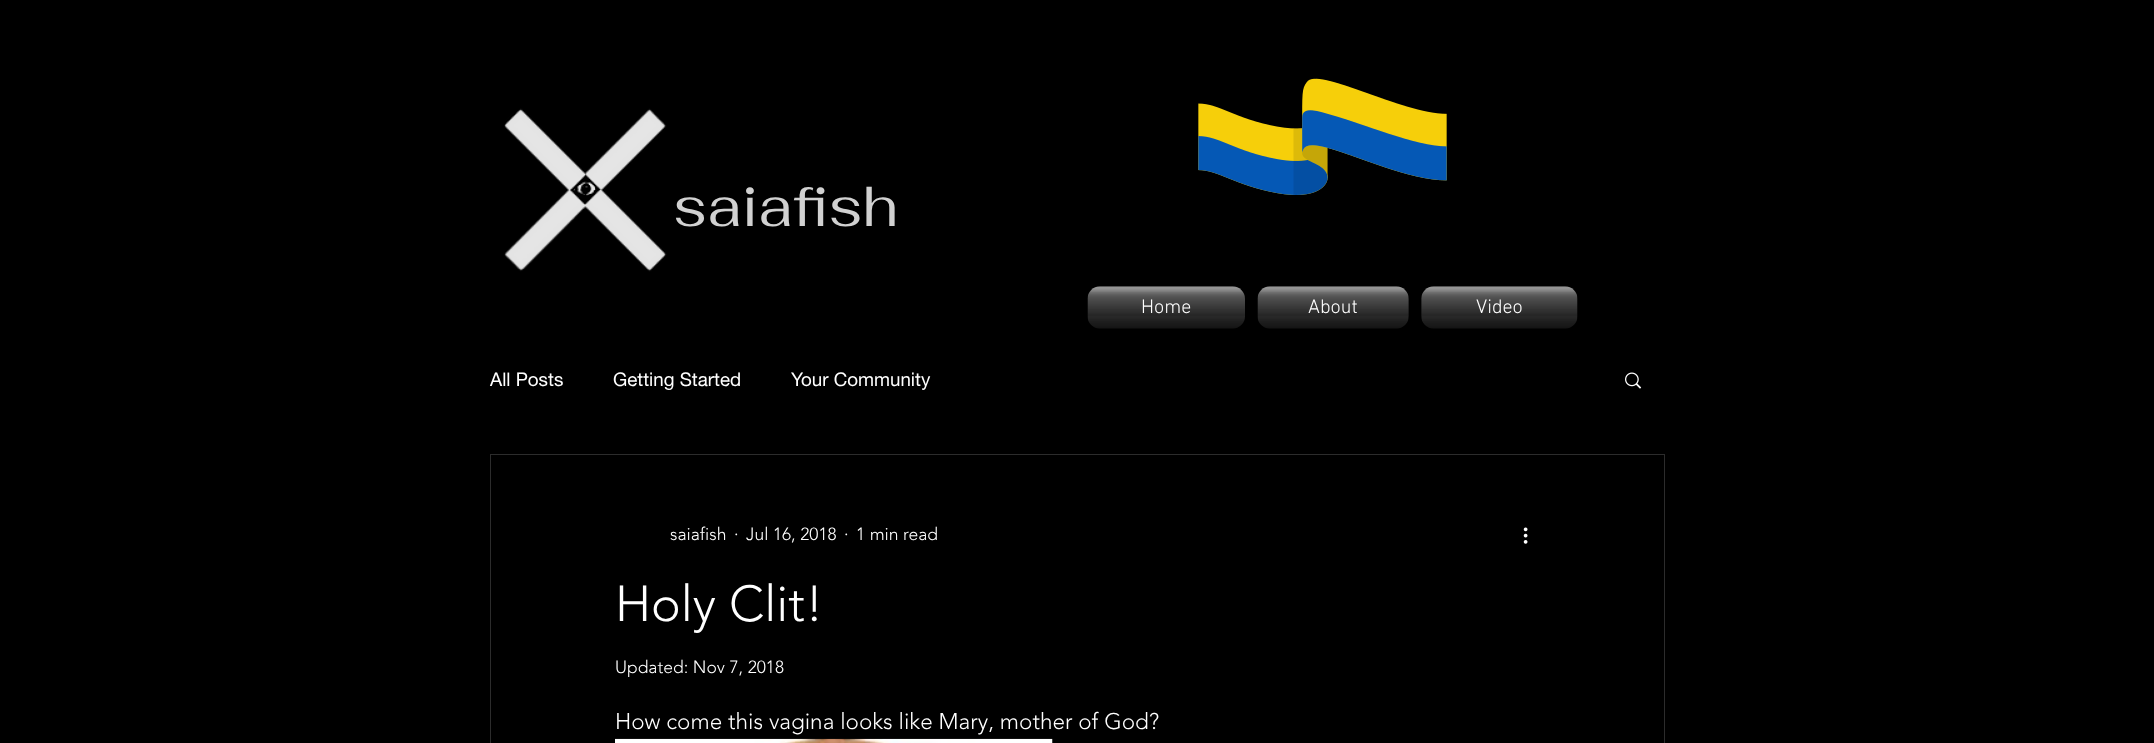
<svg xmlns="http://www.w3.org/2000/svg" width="2154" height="743">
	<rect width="100%" height="100%" fill="#000000" />
	<image x="504" y="108" width="163" height="164" href="assets/img1.png" />
	<text x="673" y="226" font-family="Fahkwang" font-size="57.5" fill="#D1D1D1">saiafish</text>
	<image x="1198" y="78" width="249" height="117" href="assets/img2.png" />
	<image x="1087" y="286" width="158" height="43" href="assets/img3.png" />
	<image x="1088" y="292" width="157" height="24" href="assets/img4.png" />
	<text x="1141" y="313" font-family="'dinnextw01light'" font-size="20" font-weight="300" fill="#FFFFFF">Home</text>
	<image x="1257" y="286" width="152" height="43" href="assets/img5.png" />
	<image x="1258" y="292" width="150" height="24" href="assets/img6.png" />
	<text x="1308" y="313" font-family="'dinnextw01light'" font-size="20" font-weight="300" fill="#FFFFFF">About</text>
	<image x="1421" y="286" width="157" height="43" href="assets/img7.png" />
	<image x="1422" y="292" width="155" height="24" href="assets/img8.png" />
	<text x="1476" y="313" font-family="'dinnextw01light'" font-size="20" font-weight="300" fill="#FFFFFF">Video</text>
	<g font-family="helvetica neue" font-size="18.75" fill="#FFFFFF">
		<text x="490" y="386">All Posts</text>
		<text x="613" y="386">Getting Started</text>
		<text x="791" y="386">Your Community</text>
	</g>
	<image x="1625" y="372" width="17" height="17" href="assets/img9.png" />
	<rect x="490.5" y="454.5" width="1174" height="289" fill="none" stroke="#2C2C2C" />
	<g font-family="'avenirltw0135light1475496'" font-size="17.5" font-weight="300" fill="#FFFFFF">
		<text x="670" y="540">saiafish</text>
		<text x="734" y="540">·</text>
		<text x="746" y="540">Jul 16, 2018</text>
		<text x="844" y="540">·</text>
		<text x="856" y="540">1 min read</text>
	</g>
	<image x="1523" y="527" width="5" height="17" href="assets/img10.png" />
	<text x="615" y="621" font-family="'avenirltw0135light1475496'" font-size="50" font-weight="300" fill="#FFFFFF">Holy Clit!</text>
	<text x="615" y="673" font-family="'avenirltw0135light1475496'" font-size="17.5" font-weight="300" fill="#FFFFFF">Updated: Nov 7, 2018</text>
	<text x="615" y="729" font-family="'avenirltw0135light1475496'" font-size="22.5" font-weight="300" fill="#FFFFFF">How come this vagina looks like Mary, mother of God?</text>
	<image x="615" y="738" width="438" height="5" href="assets/img11.png" />
</svg>
